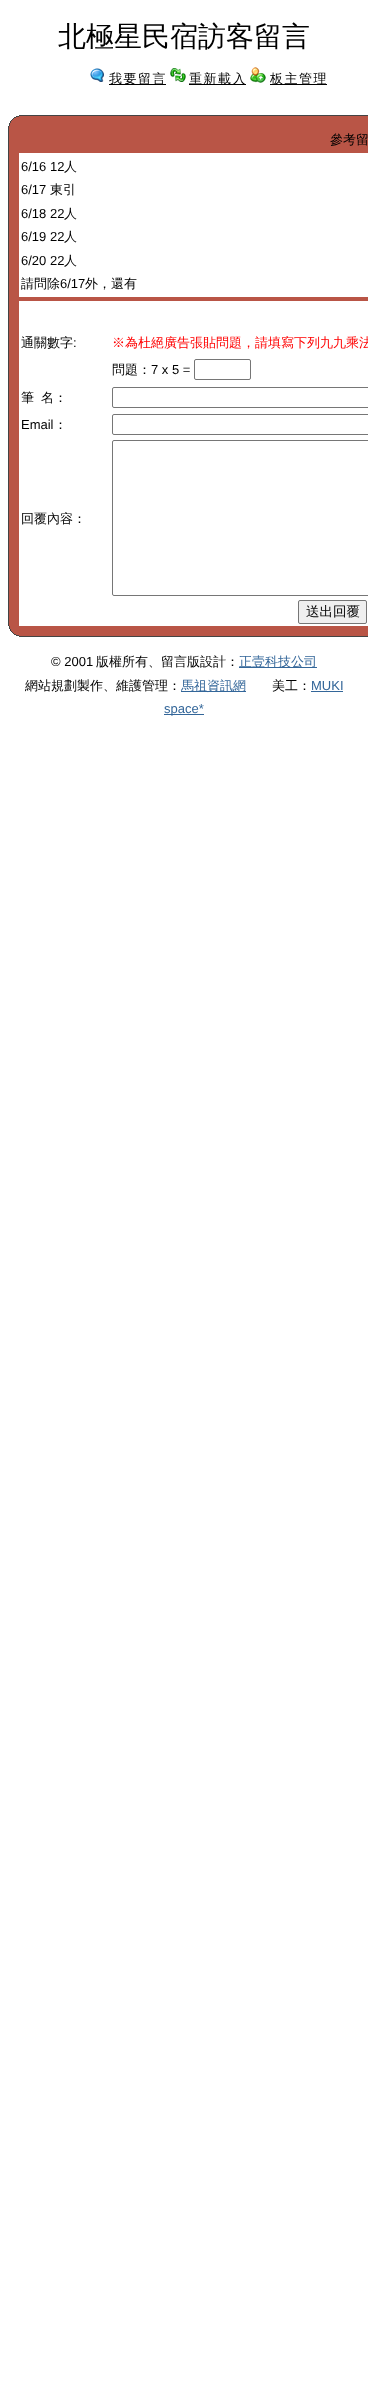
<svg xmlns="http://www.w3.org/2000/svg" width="368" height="2394">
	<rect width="100%" height="100%" fill="#FFFFFF" />
	<text x="58" y="46" font-family="WenQuanYi Zen Hei" font-size="28" font-weight="500" fill="#000000">北極星民宿訪客留言</text>
	<image x="90" y="68" width="14" height="14" href="assets/img1.png" />
	<rect x="109" y="84" width="57" height="1" fill="#000000" />
	<text x="109" y="83" font-family="WenQuanYi Zen Hei" font-size="13" font-weight="500" letter-spacing="1.5" fill="#000000">我要留言</text>
	<image x="170" y="68" width="16" height="14" href="assets/img2.png" />
	<rect x="189" y="84" width="57" height="1" fill="#000000" />
	<text x="189" y="83" font-family="WenQuanYi Zen Hei" font-size="13" font-weight="500" letter-spacing="1.5" fill="#000000">重新載入</text>
	<image x="250" y="67" width="16" height="16" href="assets/img3.png" />
	<rect x="270" y="84" width="57" height="1" fill="#000000" />
	<text x="270" y="83" font-family="WenQuanYi Zen Hei" font-size="13" font-weight="500" letter-spacing="1.5" fill="#000000">板主管理</text>
	<rect x="16" y="116" width="3" height="1" fill="#444444" />
	<rect x="14" y="117" width="2" height="1" fill="#444444" />
	<rect x="16" y="117" width="3" height="9" fill="#B95546" />
	<rect x="13" y="118" width="1" height="1" fill="#444444" />
	<rect x="14" y="118" width="2" height="8" fill="#B95546" />
	<rect x="12" y="119" width="1" height="1" fill="#444444" />
	<rect x="13" y="119" width="1" height="7" fill="#B95546" />
	<rect x="11" y="120" width="1" height="1" fill="#444444" />
	<rect x="12" y="120" width="1" height="6" fill="#B95546" />
	<rect x="10" y="121" width="1" height="2" fill="#444444" />
	<rect x="11" y="121" width="1" height="5" fill="#B95546" />
	<rect x="9" y="123" width="1" height="3" fill="#444444" />
	<rect x="10" y="123" width="1" height="3" fill="#B95546" />
	<rect x="19" y="115" width="349" height="1" fill="#444444" />
	<rect x="19" y="116" width="349" height="37" fill="#B95546" />
	<rect x="8" y="126" width="1" height="500" fill="#444444" />
	<rect x="9" y="126" width="10" height="500" fill="#B95546" />
	<text x="330" y="144" font-family="WenQuanYi Zen Hei" font-size="13" font-weight="500" fill="#000000">參考留</text>
	<text x="21" y="171" font-family="Liberation Sans" font-size="13" fill="#000000">6/16 12</text>
	<text x="64" y="171" font-family="WenQuanYi Zen Hei" font-size="13" font-weight="500" fill="#000000">人</text>
	<text x="21" y="194" font-family="Liberation Sans" font-size="13" fill="#000000">6/17</text>
	<text x="50" y="194" font-family="WenQuanYi Zen Hei" font-size="13" font-weight="500" fill="#000000">東引</text>
	<text x="21" y="218" font-family="Liberation Sans" font-size="13" fill="#000000">6/18 22</text>
	<text x="64" y="218" font-family="WenQuanYi Zen Hei" font-size="13" font-weight="500" fill="#000000">人</text>
	<text x="21" y="241" font-family="Liberation Sans" font-size="13" fill="#000000">6/19 22</text>
	<text x="64" y="241" font-family="WenQuanYi Zen Hei" font-size="13" font-weight="500" fill="#000000">人</text>
	<text x="21" y="265" font-family="Liberation Sans" font-size="13" fill="#000000">6/20 22</text>
	<g font-family="WenQuanYi Zen Hei" font-size="13" font-weight="500" fill="#000000">
		<text x="64" y="265">人</text>
		<text x="21" y="288">請問除</text>
	</g>
	<text x="60" y="288" font-family="Liberation Sans" font-size="13" fill="#000000">6/17</text>
	<text x="85" y="288" font-family="WenQuanYi Zen Hei" font-size="13" font-weight="500" fill="#000000">外，還有</text>
	<rect x="19" y="297" width="349" height="4" fill="#B95546" />
	<text x="21" y="347" font-family="WenQuanYi Zen Hei" font-size="13" font-weight="500" fill="#000000">通關數字</text>
	<text x="73" y="347" font-family="Liberation Sans" font-size="13" fill="#000000">:</text>
	<text x="112" y="347" font-family="WenQuanYi Zen Hei" font-size="13" font-weight="500" fill="#FF0000">※為杜絕廣告張貼問題，請填寫下列九九乘法</text>
	<text x="112" y="374" font-family="WenQuanYi Zen Hei" font-size="13" font-weight="500" fill="#000000">問題：</text>
	<text x="151" y="374" font-family="Liberation Sans" font-size="13" fill="#000000">7 x 5 =</text>
	<rect x="194.5" y="359.5" width="56" height="20" rx="1.5" fill="none" stroke="#767676" />
	<g font-family="WenQuanYi Zen Hei" font-size="13" font-weight="500" fill="#000000">
		<text x="21" y="402">筆</text>
		<text x="41" y="402">名：</text>
	</g>
	<rect x="112.5" y="387.5" width="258" height="20" rx="1.5" fill="none" stroke="#767676" />
	<text x="21" y="429" font-family="Liberation Sans" font-size="13" fill="#000000">Email</text>
	<text x="54" y="429" font-family="WenQuanYi Zen Hei" font-size="13" font-weight="500" fill="#000000">：</text>
	<rect x="112.5" y="414.5" width="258" height="20" rx="1.5" fill="none" stroke="#767676" />
	<text x="21" y="523" font-family="WenQuanYi Zen Hei" font-size="13" font-weight="500" fill="#000000">回覆內容：</text>
	<rect x="112.5" y="440.5" width="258" height="155" rx="1.5" fill="none" stroke="#767676" />
	<rect x="298.5" y="600.5" width="68" height="23" rx="1.5" fill="#EFEFEF" stroke="#767676" />
	<text x="306" y="616" font-family="WenQuanYi Zen Hei" font-size="13.5" font-weight="500" fill="#000000">送出回覆</text>
	<rect x="9" y="626" width="1" height="3" fill="#444444" />
	<rect x="10" y="626" width="9" height="3" fill="#B95546" />
	<rect x="10" y="629" width="1" height="2" fill="#444444" />
	<rect x="11" y="629" width="8" height="2" fill="#B95546" />
	<rect x="11" y="631" width="1" height="1" fill="#444444" />
	<rect x="12" y="631" width="7" height="1" fill="#B95546" />
	<rect x="12" y="632" width="1" height="1" fill="#444444" />
	<rect x="13" y="632" width="6" height="1" fill="#B95546" />
	<rect x="13" y="633" width="1" height="1" fill="#444444" />
	<rect x="14" y="633" width="5" height="1" fill="#B95546" />
	<rect x="14" y="634" width="2" height="1" fill="#444444" />
	<rect x="16" y="634" width="3" height="1" fill="#B95546" />
	<rect x="16" y="635" width="3" height="1" fill="#444444" />
	<rect x="19" y="626" width="349" height="10" fill="#B95546" />
	<rect x="19" y="636" width="349" height="1" fill="#444444" />
	<text x="51" y="666" font-family="Liberation Sans" font-size="13" fill="#000000">© 2001</text>
	<text x="96" y="666" font-family="WenQuanYi Zen Hei" font-size="13" font-weight="500" fill="#000000">版權所有、留言版設計：</text>
	<rect x="239" y="667" width="78" height="1" fill="#336699" />
	<text x="239" y="666" font-family="WenQuanYi Zen Hei" font-size="13" font-weight="500" fill="#336699">正壹科技公司</text>
	<text x="25" y="690" font-family="WenQuanYi Zen Hei" font-size="13" font-weight="500" fill="#000000">網站規劃製作、維護管理：</text>
	<rect x="181" y="691" width="65" height="1" fill="#336699" />
	<text x="181" y="690" font-family="WenQuanYi Zen Hei" font-size="13" font-weight="500" fill="#336699">馬祖資訊網</text>
	<text x="272" y="690" font-family="WenQuanYi Zen Hei" font-size="13" font-weight="500" fill="#000000">美工：</text>
	<text x="311" y="690" font-family="Liberation Sans" font-size="13" fill="#336699">MUKI</text>
	<rect x="311" y="691" width="32" height="1" fill="#336699" />
	<rect x="164" y="714" width="40" height="1" fill="#336699" />
	<text x="164" y="713" font-family="Liberation Sans" font-size="13" fill="#336699">space*</text>
</svg>
